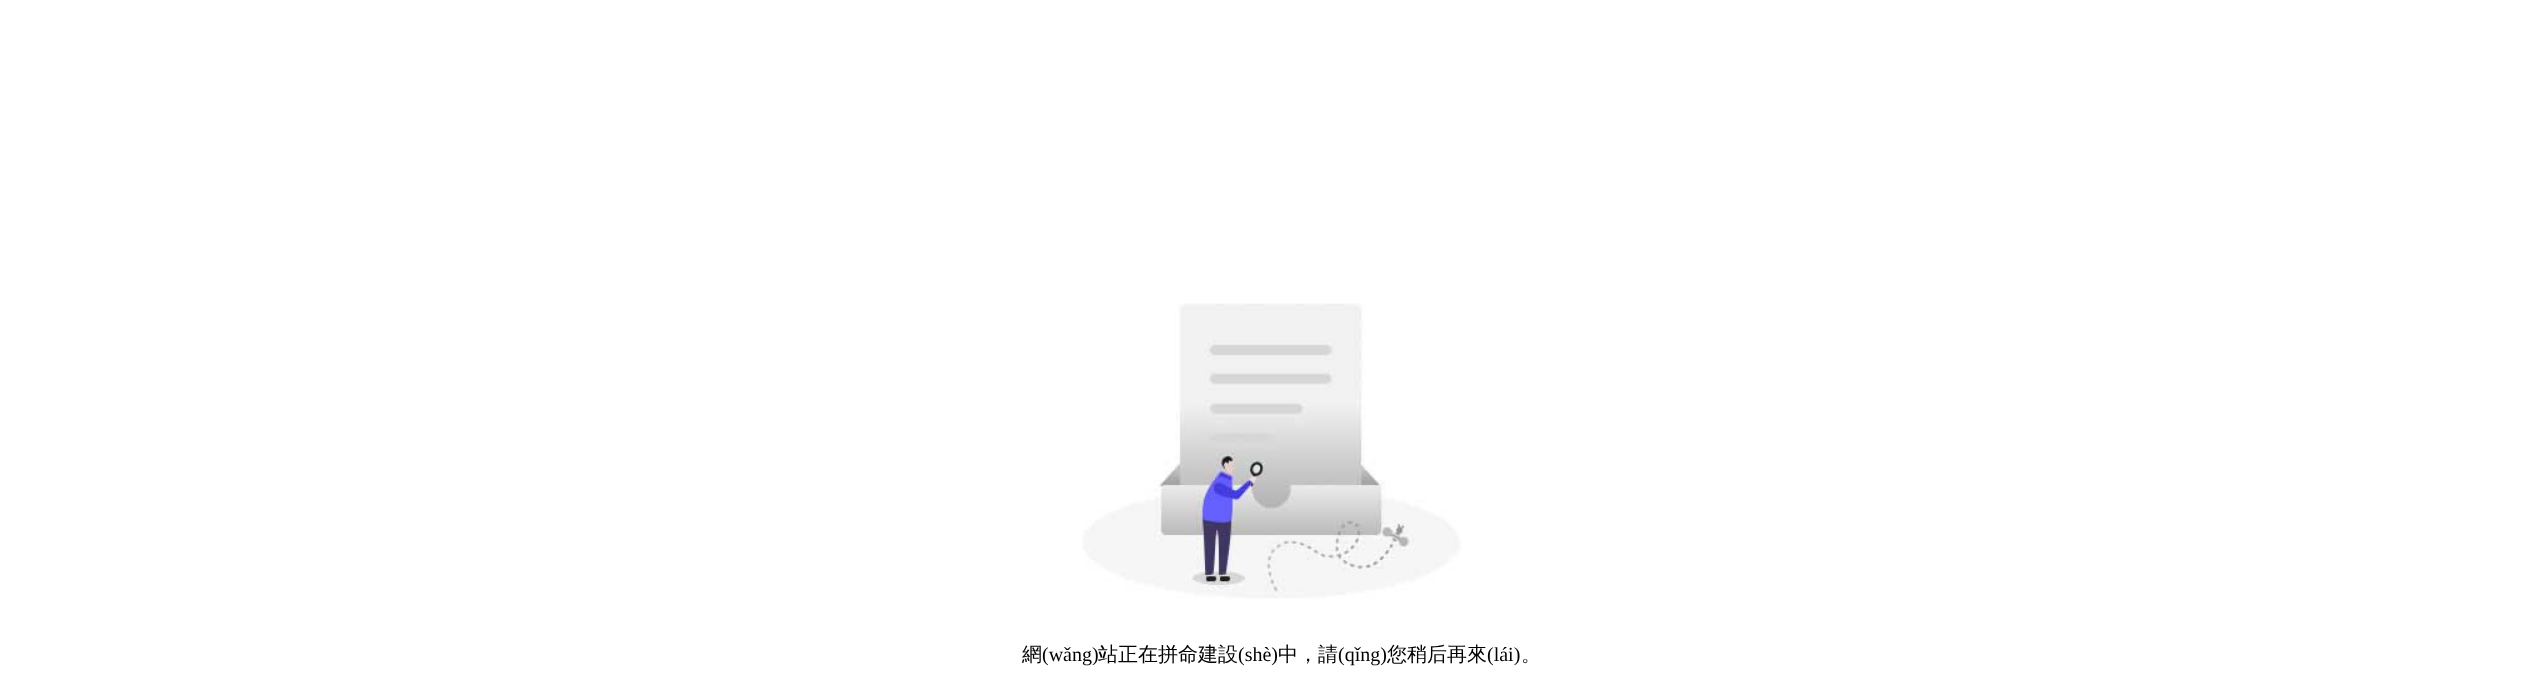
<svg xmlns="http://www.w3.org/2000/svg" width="2542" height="683">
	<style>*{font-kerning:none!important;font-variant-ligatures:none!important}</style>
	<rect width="100%" height="100%" fill="#FFFFFF" />
	<image x="1082" y="303" width="379" height="296" href="assets/img1.png" />
	<text x="1022" y="661" font-family="WenQuanYi Zen Hei" font-size="20" font-weight="500" fill="#000000">網</text>
	<text x="1042" y="661" font-family="Liberation Serif" font-size="20" fill="#000000">(wǎng)</text>
	<text x="1098" y="661" font-family="WenQuanYi Zen Hei" font-size="20" font-weight="500" fill="#000000">站正在拼命建設</text>
	<text x="1238" y="661" font-family="Liberation Serif" font-size="20" fill="#000000">(shè)</text>
	<text x="1278" y="661" font-family="WenQuanYi Zen Hei" font-size="20" font-weight="500" fill="#000000">中，請</text>
	<text x="1338" y="661" font-family="Liberation Serif" font-size="20" fill="#000000">(qǐng)</text>
	<text x="1387" y="661" font-family="WenQuanYi Zen Hei" font-size="20" font-weight="500" fill="#000000">您稍后再來</text>
	<text x="1487" y="661" font-family="Liberation Serif" font-size="20" fill="#000000">(lái)</text>
	<text x="1521" y="661" font-family="WenQuanYi Zen Hei" font-size="20" font-weight="500" fill="#000000">。</text>
</svg>
